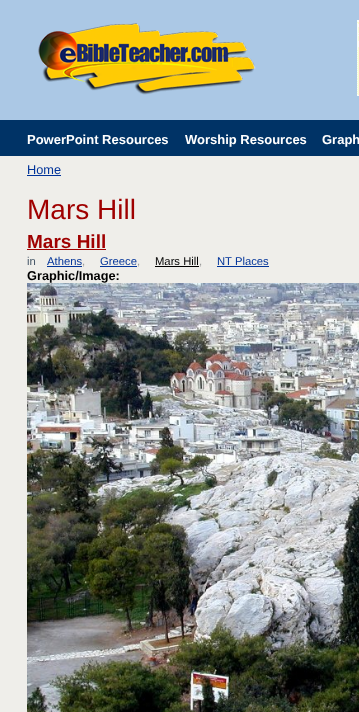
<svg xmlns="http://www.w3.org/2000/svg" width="359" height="712">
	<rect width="100%" height="100%" fill="#EFEEEA" />
	<rect x="0" y="0" width="359" height="120" fill="#ABC8E5" />
	<image x="38" y="23" width="218" height="72" href="assets/img1.png" />
	<image x="357" y="20" width="2" height="76" href="assets/img2.png" />
	<rect x="0" y="120" width="359" height="36" fill="#003366" />
	<g font-family="Liberation Sans" font-size="13" font-weight="700" fill="#FFFFFF">
		<text x="27" y="144">PowerPoint Resources</text>
		<text x="185" y="144">Worship Resources</text>
		<text x="322" y="144">Graph</text>
	</g>
	<text x="27" y="174" font-family="Liberation Sans" font-size="12.75" fill="#003399">Home</text>
	<rect x="27" y="175" width="34" height="1" fill="#003399" />
	<text x="27" y="219" font-family="Liberation Sans" font-size="28" fill="#9F0000">Mars Hill</text>
	<text x="27" y="248" font-family="Liberation Sans" font-size="19" font-weight="700" fill="#9F0000">Mars Hill</text>
	<rect x="27" y="249" width="79" height="1" fill="#9F0000" />
	<text x="27" y="265" font-family="Liberation Sans" font-size="11.25" fill="#445566">in</text>
	<text x="47" y="265" font-family="Liberation Sans" font-size="11.25" fill="#003399">Athens</text>
	<text x="82" y="265" font-family="Liberation Sans" font-size="11.25" fill="#999999">,</text>
	<rect x="47" y="266" width="35" height="1" fill="#003399" />
	<text x="100" y="265" font-family="Liberation Sans" font-size="11.25" fill="#003399">Greece</text>
	<text x="137" y="265" font-family="Liberation Sans" font-size="11.25" fill="#999999">,</text>
	<rect x="100" y="266" width="37" height="1" fill="#003399" />
	<text x="155" y="265" font-family="Liberation Sans" font-size="11.25" fill="#000000">Mars Hill</text>
	<text x="199" y="265" font-family="Liberation Sans" font-size="11.25" fill="#999999">,</text>
	<rect x="155" y="266" width="44" height="1" fill="#000000" />
	<text x="217" y="265" font-family="Liberation Sans" font-size="11.25" fill="#003399">NT Places</text>
	<rect x="217" y="266" width="52" height="1" fill="#003399" />
	<text x="27" y="280" font-family="Liberation Sans" font-size="12.75" font-weight="700" fill="#000000">Graphic/Image:</text>
	<image x="27" y="283" width="332" height="429" href="assets/img3.png" />
</svg>
